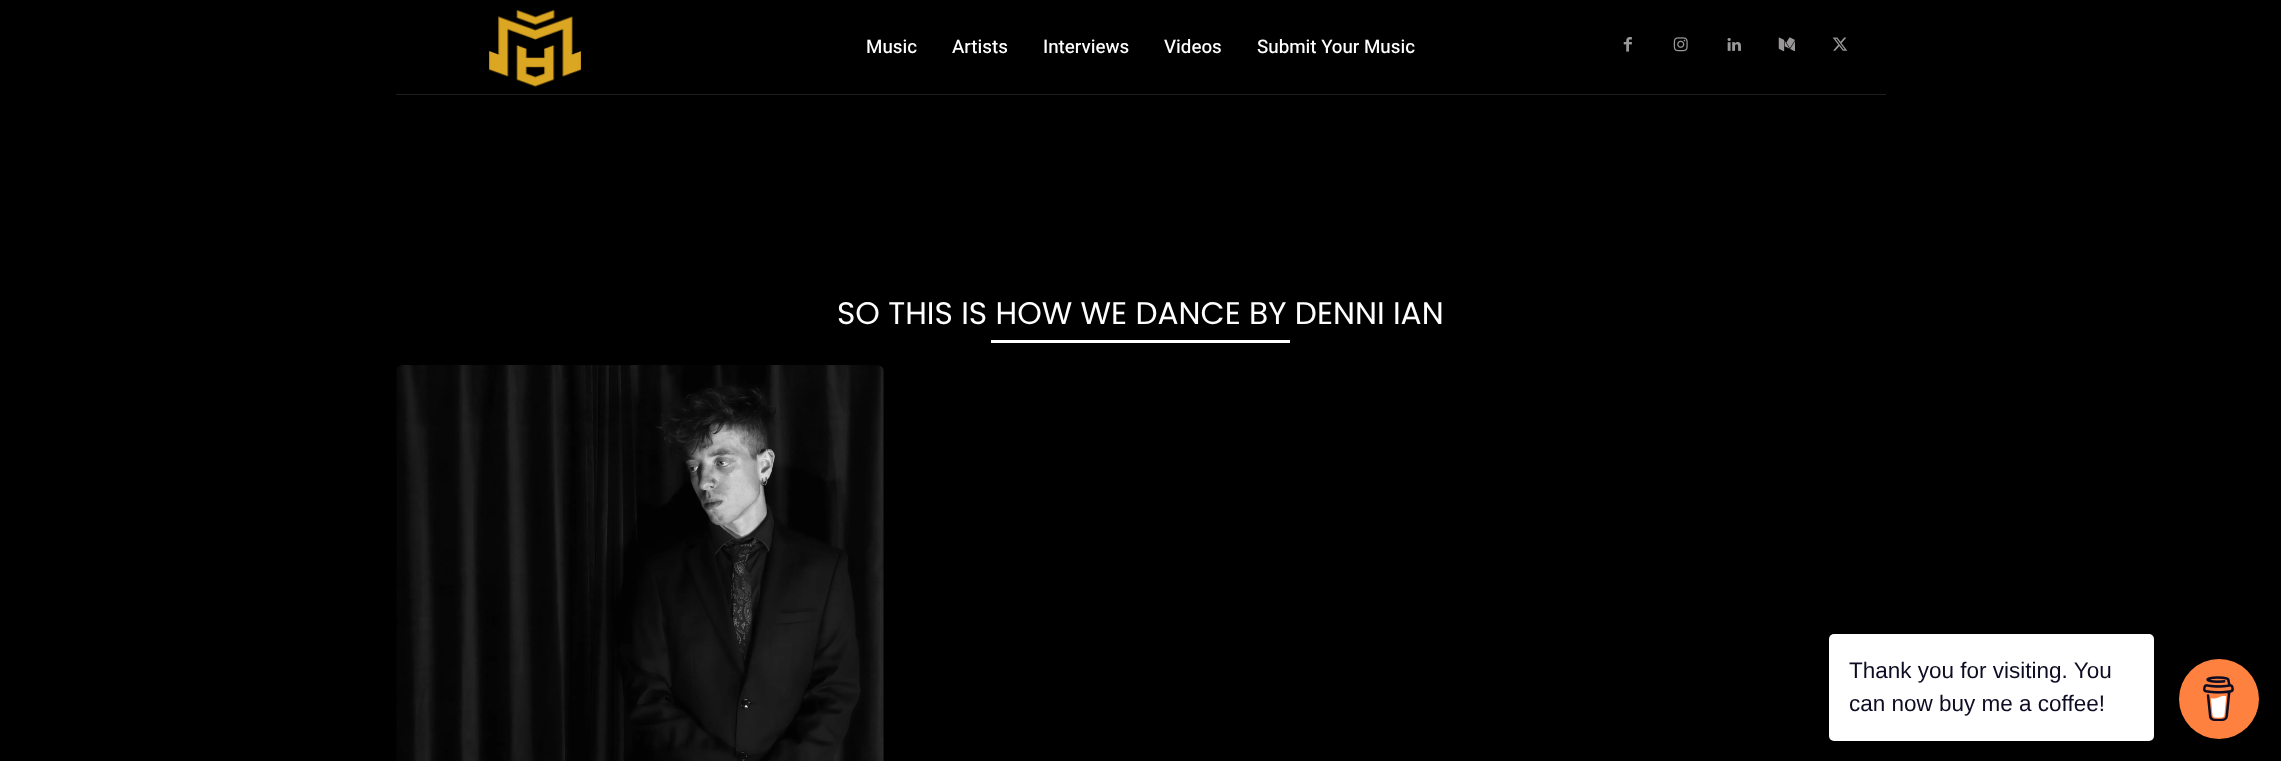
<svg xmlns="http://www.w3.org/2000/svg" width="2281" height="761">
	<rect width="100%" height="100%" fill="#000000" />
	<image x="489" y="10" width="92" height="77" href="assets/img1.png" />
	<g font-family="Heebo" font-size="18.75" font-weight="500" fill="#FFFFFF">
		<text x="866" y="53">Music</text>
		<text x="952" y="53">Artists</text>
		<text x="1043" y="53">Interviews</text>
		<text x="1164" y="53">Videos</text>
		<text x="1257" y="53">Submit Your Music</text>
	</g>
	<image x="1623" y="37" width="9" height="15" href="assets/img2.png" />
	<image x="1673" y="37" width="15" height="15" href="assets/img3.png" />
	<image x="1727" y="38" width="14" height="13" href="assets/img4.png" />
	<image x="1778" y="37" width="17" height="15" href="assets/img5.png" />
	<image x="1832" y="37" width="16" height="14" href="assets/img6.png" />
	<rect x="396" y="94" width="1490" height="1" fill="#1F1E1E" />
	<text x="837" y="324" font-family="Poppins" font-size="31.25" fill="#FFFFFF">SO THIS IS HOW WE DANCE BY DENNI IAN</text>
	<rect x="991" y="340" width="299" height="3" fill="#FFFFFF" />
	<image x="396" y="365" width="488" height="396" href="assets/img7.png" />
	<rect x="1829" y="634" width="325" height="107" rx="5" fill="#FFFFFF" />
	<g font-family="Liberation Sans" font-size="22.5" fill="#0D0C22">
		<text x="1849" y="678">Thank you for visiting. You</text>
		<text x="1849" y="711">can now buy me a coffee!</text>
	</g>
	<circle cx="2219" cy="699" r="40" fill="#FF813F" />
	<image x="2203" y="676" width="31" height="45" href="assets/img8.png" />
</svg>
